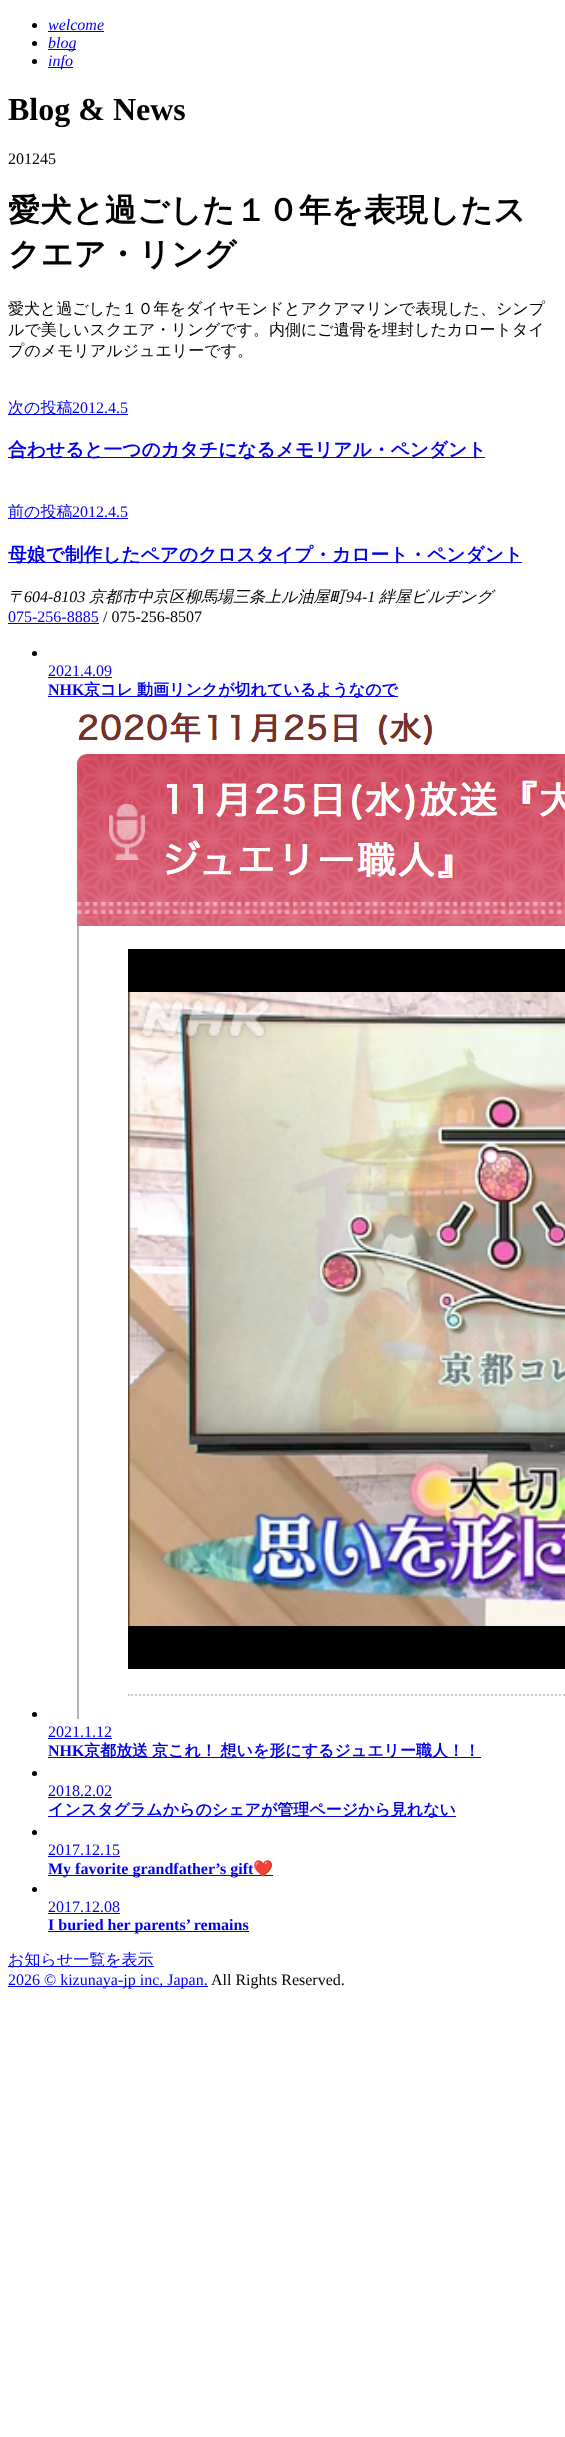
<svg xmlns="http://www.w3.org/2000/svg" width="565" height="2437">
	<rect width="100%" height="100%" fill="#FFFFFF" />
	<circle cx="34.5" cy="25.5" r="2.5" fill="#000000" />
	<text x="48" y="30" font-family="Liberation Serif" font-size="16" font-style="italic" fill="#0000EE">welcome</text>
	<rect x="48" y="31" width="56" height="1" fill="#0000EE" />
	<circle cx="34.5" cy="43.5" r="2.5" fill="#000000" />
	<rect x="48" y="49" width="28" height="1" fill="#0000EE" />
	<text x="48" y="48" font-family="Liberation Serif" font-size="16" font-style="italic" fill="#0000EE">blog</text>
	<circle cx="34.5" cy="61.5" r="2.5" fill="#000000" />
	<rect x="48" y="67" width="25" height="1" fill="#0000EE" />
	<text x="48" y="66" font-family="Liberation Serif" font-size="16" font-style="italic" fill="#0000EE">info</text>
	<text x="8" y="120" font-family="Liberation Serif" font-size="32" font-weight="700" fill="#000000">Blog &amp; News</text>
	<text x="8" y="164" font-family="Liberation Serif" font-size="16" fill="#000000">201245</text>
	<g font-family="WenQuanYi Zen Hei" font-size="32" font-weight="700" fill="#000000">
		<text x="8" y="221">愛犬と過ごした１０年を表現したス</text>
		<text x="8" y="265">クエア・リング</text>
	</g>
	<g font-family="WenQuanYi Zen Hei" font-size="16" font-weight="500" fill="#000000">
		<text x="8" y="314">愛犬と過ごした１０年をダイヤモンドとアクアマリンで表現した、シンプ</text>
		<text x="8" y="335">ルで美しいスクエア・リングです。内側にご遺骨を埋封したカロートタイ</text>
		<text x="8" y="356">プのメモリアルジュエリーです。</text>
	</g>
	<rect x="8" y="414" width="120" height="1" fill="#0000EE" />
	<text x="8" y="413" font-family="WenQuanYi Zen Hei" font-size="16" font-weight="500" fill="#0000EE">次の投稿</text>
	<text x="72" y="413" font-family="Liberation Serif" font-size="16" fill="#0000EE">2012.4.5</text>
	<rect x="8" y="457" width="477" height="1" fill="#0000EE" />
	<text x="8" y="456" font-family="WenQuanYi Zen Hei" font-size="18.75" font-weight="700" fill="#0000EE">合わせると一つのカタチになるメモリアル・ペンダント</text>
	<rect x="8" y="518" width="120" height="1" fill="#0000EE" />
	<text x="8" y="517" font-family="WenQuanYi Zen Hei" font-size="16" font-weight="500" fill="#0000EE">前の投稿</text>
	<text x="72" y="517" font-family="Liberation Serif" font-size="16" fill="#0000EE">2012.4.5</text>
	<rect x="8" y="562" width="514" height="1" fill="#0000EE" />
	<text x="8" y="561" font-family="WenQuanYi Zen Hei" font-size="18.75" font-weight="700" fill="#0000EE">母娘で制作したペアのクロスタイプ・カロート・ペンダント</text>
	<text x="8" y="602" font-family="WenQuanYi Zen Hei" font-size="16" font-weight="500" font-style="italic" fill="#000000">〒</text>
	<text x="24" y="602" font-family="Liberation Serif" font-size="16" font-style="italic" fill="#000000">604-8103</text>
	<text x="89" y="602" font-family="WenQuanYi Zen Hei" font-size="16" font-weight="500" font-style="italic" fill="#000000">京都市中京区柳馬場三条上ル油屋町</text>
	<text x="346" y="602" font-family="Liberation Serif" font-size="16" font-style="italic" fill="#000000">94-1</text>
	<text x="379" y="602" font-family="WenQuanYi Zen Hei" font-size="16" font-weight="500" font-style="italic" fill="#000000">絆屋ビルヂング</text>
	<text x="8" y="622" font-family="Liberation Serif" font-size="16" fill="#0000EE">075-256-8885</text>
	<rect x="8" y="623" width="91" height="1" fill="#0000EE" />
	<text x="103" y="622" font-family="Liberation Serif" font-size="16" fill="#000000">/ 075-256-8507</text>
	<circle cx="34.5" cy="653.5" r="2.5" fill="#000000" />
	<text x="48" y="676" font-family="Liberation Serif" font-size="16" fill="#0000EE">2021.4.09</text>
	<rect x="48" y="677" width="64" height="1" fill="#0000EE" />
	<text x="48" y="695" font-family="Liberation Serif" font-size="16" font-weight="700" fill="#0000EE">NHK</text>
	<rect x="48" y="696" width="350" height="1" fill="#0000EE" />
	<g font-family="WenQuanYi Zen Hei" font-size="16" font-weight="700" fill="#0000EE">
		<text x="84" y="695">京コレ</text>
		<text x="137" y="695">動画リンクが切れているようなので</text>
	</g>
	<circle cx="34.5" cy="1714.5" r="2.5" fill="#000000" />
	<image x="77" y="712" width="488" height="1007" href="assets/img1.png" />
	<text x="48" y="1737" font-family="Liberation Serif" font-size="16" fill="#0000EE">2021.1.12</text>
	<rect x="48" y="1738" width="64" height="1" fill="#0000EE" />
	<text x="48" y="1756" font-family="Liberation Serif" font-size="16" font-weight="700" fill="#0000EE">NHK</text>
	<rect x="48" y="1757" width="433" height="1" fill="#0000EE" />
	<g font-family="WenQuanYi Zen Hei" font-size="16" font-weight="700" fill="#0000EE">
		<text x="84" y="1756">京都放送</text>
		<text x="152" y="1756" word-spacing="-1">京これ！ 想いを形にするジュエリー職人！！</text>
	</g>
	<circle cx="34.5" cy="1773.5" r="2.5" fill="#000000" />
	<text x="48" y="1796" font-family="Liberation Serif" font-size="16" fill="#0000EE">2018.2.02</text>
	<rect x="48" y="1797" width="64" height="1" fill="#0000EE" />
	<rect x="48" y="1816" width="408" height="1" fill="#0000EE" />
	<text x="48" y="1815" font-family="WenQuanYi Zen Hei" font-size="16" font-weight="700" fill="#0000EE">インスタグラムからのシェアが管理ページから見れない</text>
	<circle cx="34.5" cy="1832.5" r="2.5" fill="#000000" />
	<text x="48" y="1855" font-family="Liberation Serif" font-size="16" fill="#0000EE">2017.12.15</text>
	<rect x="48" y="1856" width="72" height="1" fill="#0000EE" />
	<rect x="48" y="1875" width="225" height="1" fill="#0000EE" />
	<text x="48" y="1874" font-family="Liberation Serif" font-size="16" font-weight="700" fill="#0000EE">My favorite grandfather’s gift</text>
	<text x="253" y="1874" font-family="Noto Color Emoji" font-size="16" font-weight="700" fill="#0000EE">❤️</text>
	<circle cx="34.5" cy="1889.5" r="2.5" fill="#000000" />
	<text x="48" y="1912" font-family="Liberation Serif" font-size="16" fill="#0000EE">2017.12.08</text>
	<rect x="48" y="1913" width="72" height="1" fill="#0000EE" />
	<rect x="48" y="1931" width="201" height="1" fill="#0000EE" />
	<text x="48" y="1930" font-family="Liberation Serif" font-size="16" font-weight="700" fill="#0000EE">I buried her parents’ remains</text>
	<rect x="8" y="1966" width="146" height="1" fill="#0000EE" />
	<text x="8" y="1965" font-family="WenQuanYi Zen Hei" font-size="16" font-weight="500" fill="#0000EE">お知らせ一覧を表示</text>
	<rect x="8" y="1986" width="200" height="1" fill="#0000EE" />
	<text x="8" y="1985" font-family="Liberation Serif" font-size="16" fill="#0000EE">2026 © kizunaya-jp inc, Japan.</text>
	<text x="211" y="1985" font-family="Liberation Serif" font-size="16" fill="#000000">All Rights Reserved.</text>
</svg>
